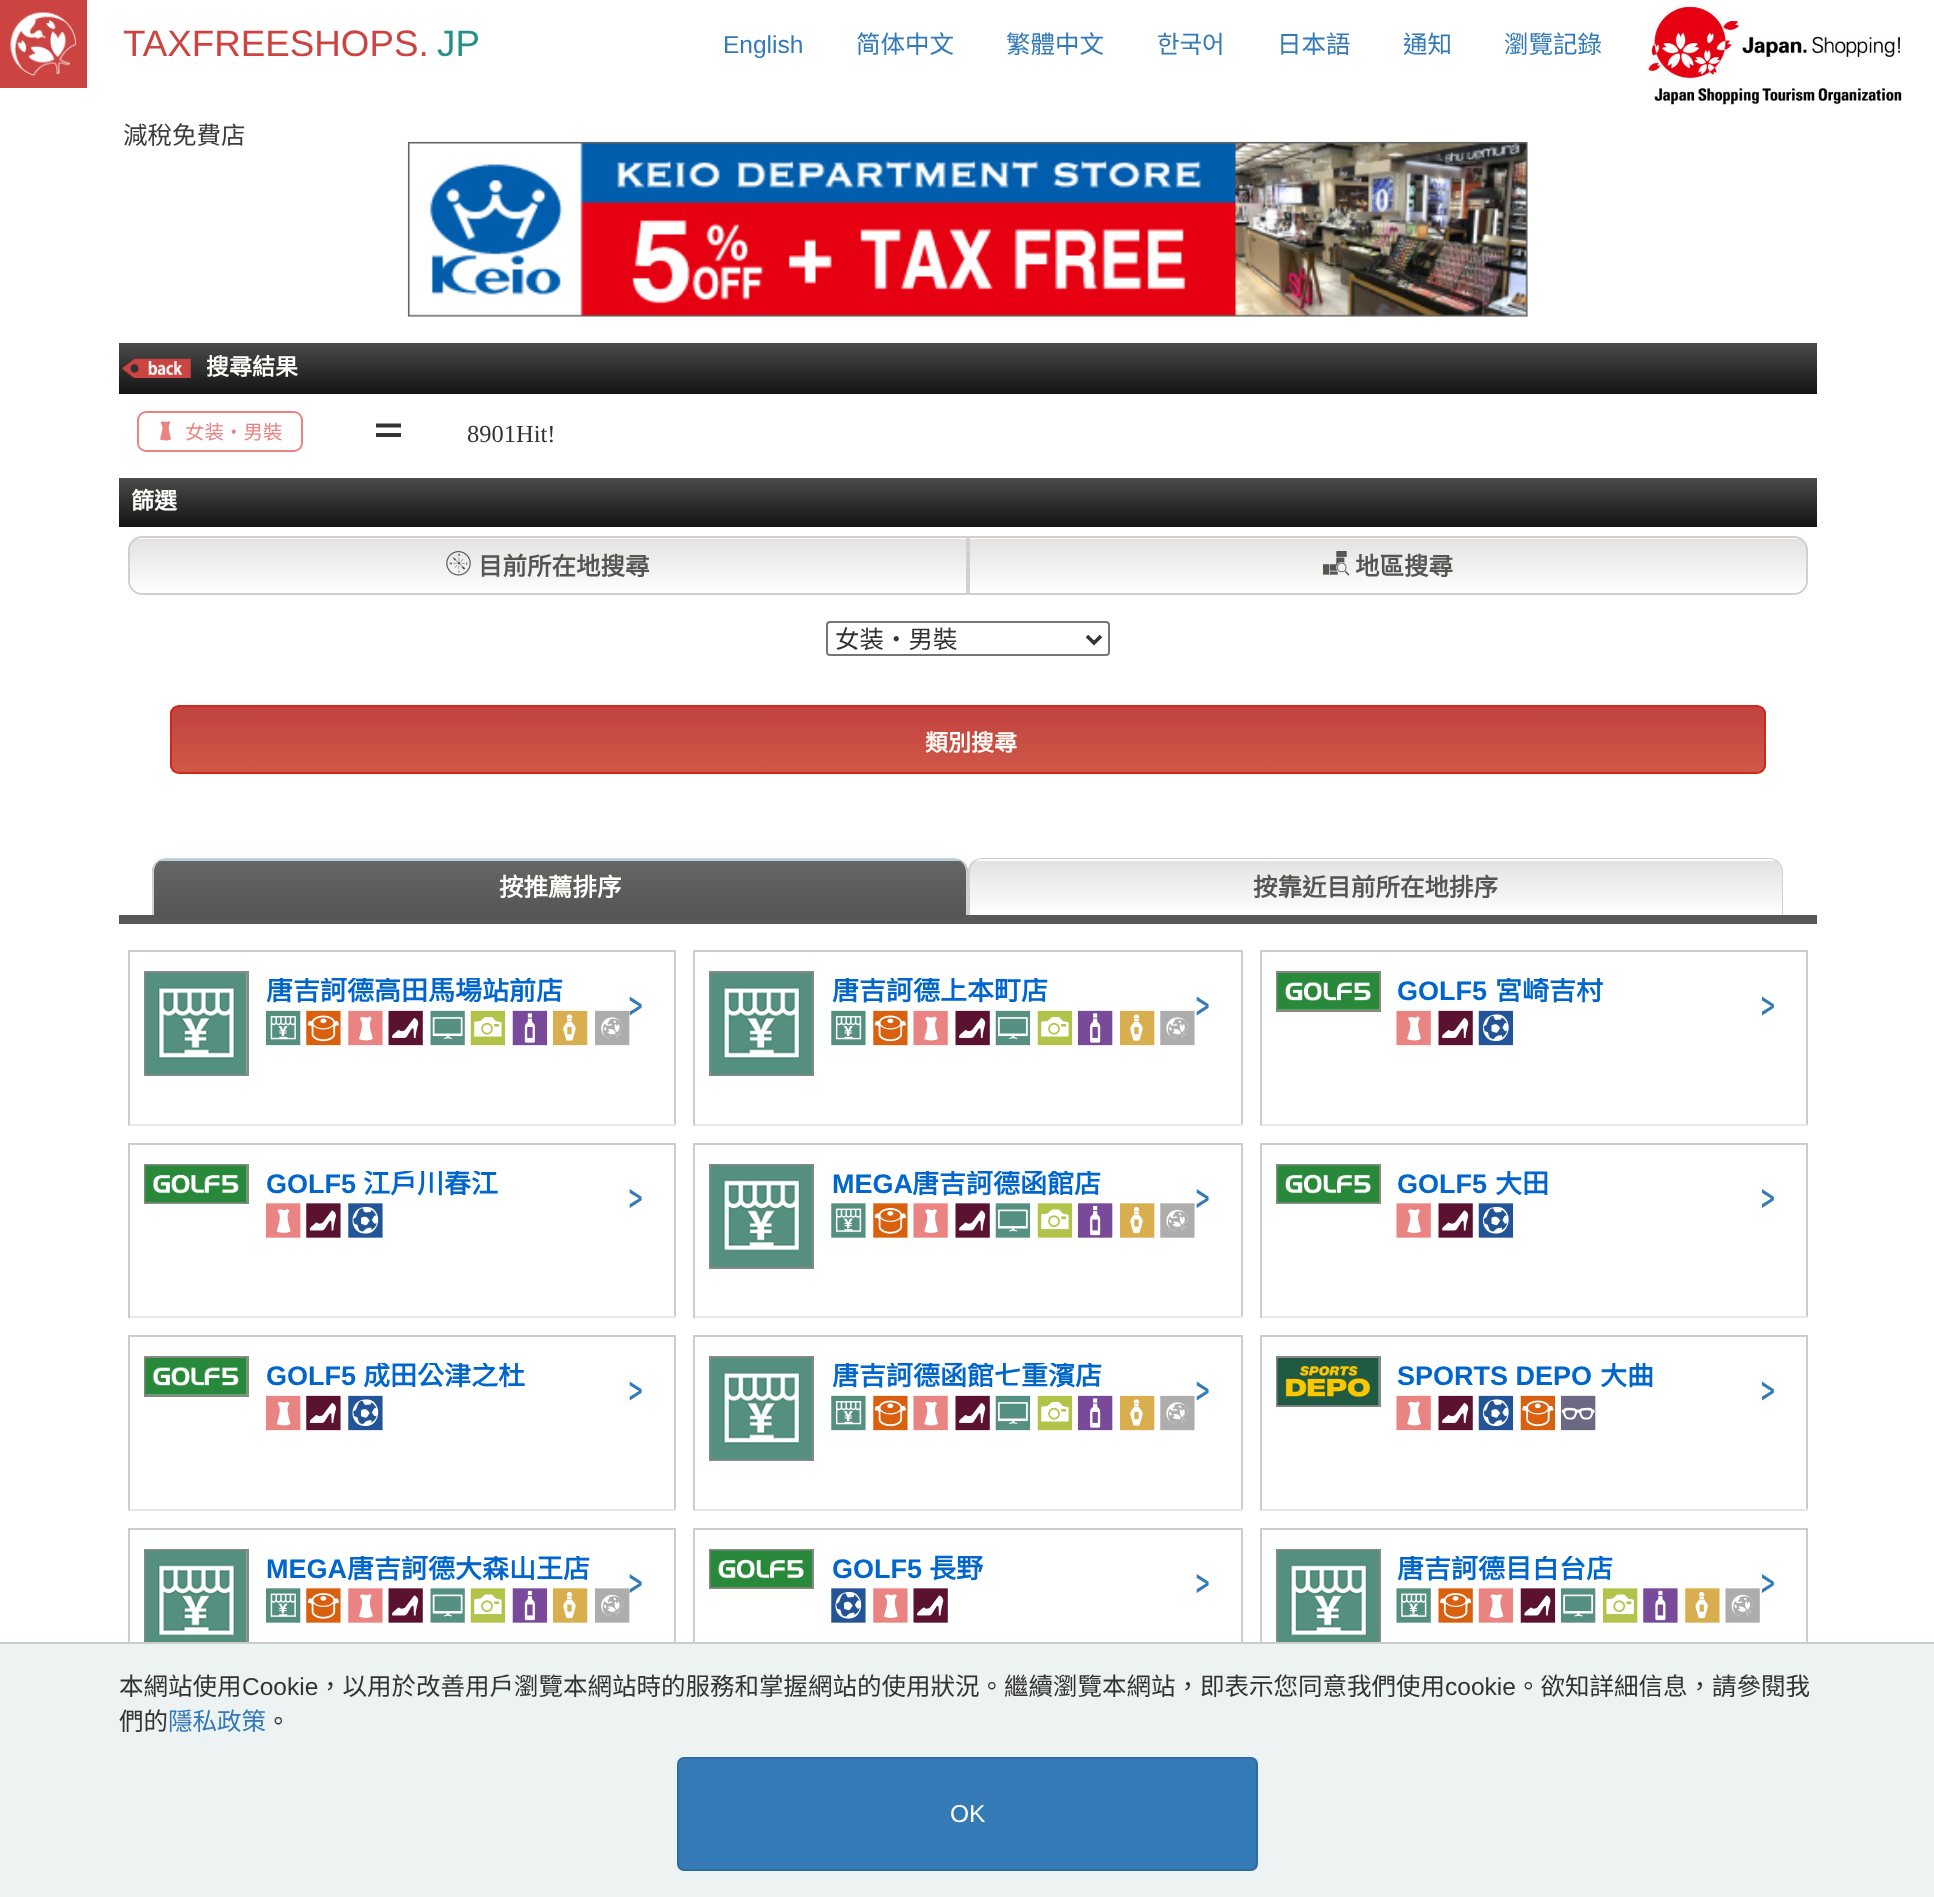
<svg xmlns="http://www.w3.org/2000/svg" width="1934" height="1897">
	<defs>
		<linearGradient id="g1" gradientUnits="userSpaceOnUse" x1="968" y1="343" x2="968" y2="394"><stop offset="0" stop-color="#4B4B4B" /><stop offset="1" stop-color="#131313" /></linearGradient>
		<linearGradient id="g2" gradientUnits="userSpaceOnUse" x1="968" y1="478" x2="968" y2="527"><stop offset="0" stop-color="#4B4B4B" /><stop offset="1" stop-color="#131313" /></linearGradient>
		<clipPath id="clip1"><path d="M142 536H968V595H142C134.5 595 128 588.5 128 581V550C128 542.5 134.5 536 142 536Z" /></clipPath>
		<linearGradient id="g3" gradientUnits="userSpaceOnUse" x1="130" y1="537" x2="130" y2="593"><stop offset="0" stop-color="#FFFFFF" /><stop offset="0.03" stop-color="#FFFFFF" /><stop offset="0.03" stop-color="#E4E1E2" /><stop offset="1" stop-color="#FFFFFF" /></linearGradient>
		<clipPath id="clip2"><path d="M968 536H1794C1801.5 536 1808 542.5 1808 550V581C1808 588.5 1801.5 595 1794 595H968Z" /></clipPath>
		<linearGradient id="g4" gradientUnits="userSpaceOnUse" x1="970" y1="537" x2="970" y2="593"><stop offset="0" stop-color="#FFFFFF" /><stop offset="0.03" stop-color="#FFFFFF" /><stop offset="0.03" stop-color="#E4E2E1" /><stop offset="1" stop-color="#FFFFFF" /></linearGradient>
		<clipPath id="clip3"><rect x="170" y="705" width="1596" height="69" rx="9" /></clipPath>
		<linearGradient id="g5" gradientUnits="userSpaceOnUse" x1="968" y1="707" x2="968" y2="772"><stop offset="0" stop-color="#C0433F" /><stop offset="1" stop-color="#D05847" /></linearGradient>
		<clipPath id="clip4"><path d="M166 858H954C961.5 858 968 864.5 968 872V915H152V872C152 864.5 158.5 858 166 858Z" /></clipPath>
		<linearGradient id="g6" gradientUnits="userSpaceOnUse" x1="154" y1="859" x2="154" y2="915"><stop offset="0" stop-color="#B1D2E0" /><stop offset="0.03" stop-color="#B1D2E0" /><stop offset="0.03" stop-color="#666666" /><stop offset="1" stop-color="#555555" /></linearGradient>
		<clipPath id="clip5"><path d="M982 858H1769C1776.5 858 1783 864.5 1783 872V915H968V872C968 864.5 974.5 858 982 858Z" /></clipPath>
		<linearGradient id="g7" gradientUnits="userSpaceOnUse" x1="970" y1="859" x2="970" y2="915"><stop offset="0" stop-color="#FFFFFF" /><stop offset="0.03" stop-color="#FFFFFF" /><stop offset="0.03" stop-color="#E4E1E2" /><stop offset="1" stop-color="#FFFFFF" /></linearGradient>
		<clipPath id="clip6"><rect x="266" y="978" width="362" height="30" /></clipPath>
		<clipPath id="clip7"><rect x="831" y="978" width="364" height="30" /></clipPath>
		<clipPath id="clip8"><rect x="1397" y="978" width="364" height="30" /></clipPath>
		<clipPath id="clip9"><rect x="266" y="1171" width="362" height="30" /></clipPath>
		<clipPath id="clip10"><rect x="831" y="1171" width="364" height="30" /></clipPath>
		<clipPath id="clip11"><rect x="1397" y="1171" width="364" height="30" /></clipPath>
		<clipPath id="clip12"><rect x="266" y="1363" width="362" height="30" /></clipPath>
		<clipPath id="clip13"><rect x="831" y="1363" width="364" height="30" /></clipPath>
		<clipPath id="clip14"><rect x="1397" y="1363" width="364" height="30" /></clipPath>
		<clipPath id="clip15"><rect x="266" y="1556" width="362" height="30" /></clipPath>
		<clipPath id="clip16"><rect x="1397" y="1556" width="364" height="30" /></clipPath>
	</defs>
	<rect width="100%" height="100%" fill="#FFFFFF" />
	<image x="0" y="0" width="87" height="88" href="assets/img1.png" />
	<text x="123" y="56" font-family="Liberation Sans" font-size="36.75" fill="#CC4441">TAXFREESHOPS.</text>
	<text x="437" y="56" font-family="Liberation Sans" font-size="36.75" fill="#278E8C">JP</text>
	<text x="123" y="144" font-family="Noto Sans CJK TC" font-size="24.5" fill="#3F3B3A">減稅免費店</text>
	<text x="723" y="53" font-family="Liberation Sans" font-size="24.5" fill="#337AB7">English</text>
	<g font-family="Noto Sans CJK TC" font-size="24.5" fill="#337AB7">
		<text x="856" y="53">简体中文</text>
		<text x="1006" y="53">繁體中文</text>
		<text x="1157" y="53">한국어</text>
		<text x="1277" y="53">日本語</text>
		<text x="1403" y="53">通知</text>
		<text x="1504" y="53">瀏覽記錄</text>
	</g>
	<image x="1647" y="5" width="255" height="100" href="assets/img2.png" />
	<image x="407" y="141" width="1121" height="176" href="assets/img3.png" />
	<rect x="119" y="343" width="1698" height="51" fill="url(#g1)" />
	<image x="122" y="358" width="69" height="20" href="assets/img4.png" />
	<text x="206" y="375" font-family="Noto Sans CJK TC" font-size="23" font-weight="700" fill="#FFFFFB">搜尋結果</text>
	<rect x="138" y="412" width="164" height="39" rx="8" fill="none" stroke="#E98483" stroke-width="2" />
	<image x="160" y="421" width="11" height="20" href="assets/img5.png" />
	<text x="185" y="439" font-family="Noto Sans CJK TC" font-size="19.5" fill="#E98483">女装・男裝</text>
	<text x="467" y="442" font-family="Liberation Serif" font-size="24.5" fill="#333333">8901Hit!</text>
	<path d="M401 427.5H376V423.5H401ZM401 437H376V433H401Z" fill="#333333" />
	<rect x="119" y="478" width="1698" height="49" fill="url(#g2)" />
	<text x="131" y="509" font-family="Noto Sans CJK TC" font-size="23" font-weight="700" fill="#FFFFFB">篩選</text>
	<g clip-path="url(#clip1)">
		<rect x="128" y="537" width="838" height="56" fill="url(#g3)" />
	</g>
	<path d="M142 537H967V594H142C135 594 129 588 129 581V550C129 543 135 537 142 537Z" fill="none" stroke="#D1CFD0" stroke-width="2" />
	<image x="446" y="551" width="25" height="25" href="assets/img6.png" />
	<text x="478" y="575" font-family="Noto Sans CJK TC" font-size="24.5" font-weight="700" fill="#565552">目前所在地搜尋</text>
	<g clip-path="url(#clip2)">
		<rect x="970" y="537" width="838" height="56" fill="url(#g4)" />
	</g>
	<path d="M969 537H1794C1801 537 1807 543 1807 550V581C1807 588 1801 594 1794 594H969Z" fill="none" stroke="#D1CFD0" stroke-width="2" />
	<image x="1323" y="551" width="27" height="25" href="assets/img7.png" />
	<text x="1355" y="575" font-family="Noto Sans CJK TC" font-size="24.5" font-weight="700" fill="#565552">地區搜尋</text>
	<rect x="827" y="622" width="282" height="33" rx="3" fill="none" stroke="#767676" stroke-width="2" />
	<path d="M1087 636L1094 643L1101 636" fill="none" stroke="#333333" stroke-width="3.5" />
	<text x="835" y="648" font-family="Noto Sans CJK TC" font-size="24.5" fill="#333333">女装・男裝</text>
	<g clip-path="url(#clip3)">
		<rect x="170" y="707" width="1596" height="65" fill="url(#g5)" />
	</g>
	<rect x="171" y="706" width="1594" height="67" rx="8" fill="none" stroke="#D02718" stroke-width="2" />
	<text x="925" y="751" font-family="Noto Sans CJK TC" font-size="23" font-weight="700" fill="#FFFFFB">類別搜尋</text>
	<rect x="119" y="915" width="1698" height="9" fill="#575757" />
	<g clip-path="url(#clip4)">
		<rect x="152" y="859" width="816" height="56" fill="url(#g6)" />
	</g>
	<path d="M166 858H954C961 858 968 864 968 872V915H152V872C152 864 159 858 166 858ZM166 859H954C961 859 966 865 966 872V915H154V872C154 865 159 859 166 859Z" fill="#D1CFD0" fill-rule="evenodd" />
	<text x="499" y="896" font-family="Noto Sans CJK TC" font-size="24.5" font-weight="700" fill="#FFFFFB">按推薦排序</text>
	<g clip-path="url(#clip5)">
		<rect x="968" y="859" width="815" height="56" fill="url(#g7)" />
	</g>
	<path d="M982 858H1769C1777 858 1783 864 1783 872V915H968V872C968 864 974 858 982 858ZM982 859H1769C1776 859 1782 865 1782 872V915H970V872C970 865 975 859 982 859Z" fill="#D1CFD0" fill-rule="evenodd" />
	<text x="1253" y="896" font-family="Noto Sans CJK TC" font-size="24.5" font-weight="700" fill="#565552">按靠近目前所在地排序</text>
	<rect x="128" y="950" width="548" height="2" fill="#CCCCCC" />
	<rect x="674" y="950" width="2" height="175" fill="#CCCCCC" />
	<rect x="128" y="1124" width="548" height="2" fill="#E8E8E8" />
	<rect x="128" y="950" width="2" height="175" fill="#CCCCCC" />
	<rect x="145" y="972" width="103" height="103" fill="none" stroke="#888888" stroke-width="2" />
	<image x="145" y="973" width="102" height="102" href="assets/img8.png" />
	<g clip-path="url(#clip6)">
		<text x="266" y="1000" font-family="Noto Sans CJK TC" font-size="27" font-weight="700" fill="#0066CC">唐吉訶德高田馬場站前店</text>
	</g>
	<image x="266" y="1010" width="35" height="36" href="assets/img9.png" />
	<image x="306" y="1010" width="35" height="36" href="assets/img10.png" />
	<image x="348" y="1010" width="35" height="36" href="assets/img11.png" />
	<image x="388" y="1010" width="35" height="36" href="assets/img12.png" />
	<image x="430" y="1010" width="35" height="36" href="assets/img13.png" />
	<image x="470" y="1010" width="36" height="36" href="assets/img14.png" />
	<image x="512" y="1010" width="36" height="36" href="assets/img15.png" />
	<image x="553" y="1010" width="35" height="36" href="assets/img16.png" />
	<image x="595" y="1010" width="35" height="36" href="assets/img17.png" />
	<image x="629" y="996" width="13" height="20" href="assets/img18.png" />
	<rect x="693" y="950" width="550" height="2" fill="#CCCCCC" />
	<rect x="1241" y="950" width="2" height="175" fill="#CCCCCC" />
	<rect x="693" y="1124" width="550" height="2" fill="#E8E8E8" />
	<rect x="693" y="950" width="2" height="175" fill="#CCCCCC" />
	<rect x="710" y="972" width="103" height="103" fill="none" stroke="#888888" stroke-width="2" />
	<image x="710" y="973" width="102" height="102" href="assets/img19.png" />
	<g clip-path="url(#clip7)">
		<text x="832" y="1000" font-family="Noto Sans CJK TC" font-size="27" font-weight="700" fill="#0066CC">唐吉訶德上本町店</text>
	</g>
	<image x="831" y="1010" width="35" height="36" href="assets/img20.png" />
	<image x="873" y="1010" width="35" height="36" href="assets/img10.png" />
	<image x="913" y="1010" width="35" height="36" href="assets/img21.png" />
	<image x="955" y="1010" width="35" height="36" href="assets/img12.png" />
	<image x="995" y="1010" width="36" height="36" href="assets/img22.png" />
	<image x="1037" y="1010" width="36" height="36" href="assets/img14.png" />
	<image x="1078" y="1010" width="35" height="36" href="assets/img23.png" />
	<image x="1120" y="1010" width="35" height="36" href="assets/img16.png" />
	<image x="1160" y="1010" width="35" height="36" href="assets/img24.png" />
	<image x="1196" y="996" width="13" height="20" href="assets/img25.png" />
	<rect x="1260" y="950" width="548" height="2" fill="#CCCCCC" />
	<rect x="1806" y="950" width="2" height="175" fill="#CCCCCC" />
	<rect x="1260" y="1124" width="548" height="2" fill="#E8E8E8" />
	<rect x="1260" y="950" width="2" height="175" fill="#CCCCCC" />
	<rect x="1277" y="972" width="103" height="39" fill="none" stroke="#888888" stroke-width="2" />
	<image x="1277" y="973" width="102" height="37" href="assets/img26.png" />
	<text x="1397" y="1000" font-family="Liberation Sans" font-size="27" font-weight="700" fill="#0066CC">GOLF5</text>
	<g clip-path="url(#clip8)">
		<text x="1495" y="1000" font-family="Noto Sans CJK TC" font-size="27" font-weight="700" fill="#0066CC">宮崎吉村</text>
	</g>
	<image x="1396" y="1010" width="35" height="36" href="assets/img21.png" />
	<image x="1438" y="1010" width="35" height="36" href="assets/img12.png" />
	<image x="1478" y="1010" width="36" height="36" href="assets/img27.png" />
	<image x="1761" y="996" width="13" height="20" href="assets/img28.png" />
	<rect x="128" y="1143" width="548" height="2" fill="#CCCCCC" />
	<rect x="674" y="1143" width="2" height="175" fill="#CCCCCC" />
	<rect x="128" y="1316" width="548" height="2" fill="#E8E8E8" />
	<rect x="128" y="1143" width="2" height="175" fill="#CCCCCC" />
	<rect x="145" y="1165" width="103" height="38" fill="none" stroke="#888888" stroke-width="2" />
	<image x="145" y="1165" width="102" height="38" href="assets/img29.png" />
	<text x="266" y="1193" font-family="Liberation Sans" font-size="27" font-weight="700" fill="#0066CC">GOLF5</text>
	<g clip-path="url(#clip9)">
		<text x="363" y="1193" font-family="Noto Sans CJK TC" font-size="27" font-weight="700" fill="#0066CC">江戶川春江</text>
	</g>
	<image x="266" y="1203" width="35" height="35" href="assets/img30.png" />
	<image x="306" y="1203" width="35" height="35" href="assets/img31.png" />
	<image x="348" y="1203" width="35" height="35" href="assets/img32.png" />
	<image x="629" y="1189" width="13" height="19" href="assets/img33.png" />
	<rect x="693" y="1143" width="550" height="2" fill="#CCCCCC" />
	<rect x="1241" y="1143" width="2" height="175" fill="#CCCCCC" />
	<rect x="693" y="1316" width="550" height="2" fill="#E8E8E8" />
	<rect x="693" y="1143" width="2" height="175" fill="#CCCCCC" />
	<rect x="710" y="1165" width="103" height="103" fill="none" stroke="#888888" stroke-width="2" />
	<image x="710" y="1165" width="102" height="102" href="assets/img34.png" />
	<text x="832" y="1193" font-family="Liberation Sans" font-size="27" font-weight="700" fill="#0066CC">MEGA</text>
	<g clip-path="url(#clip10)">
		<text x="912" y="1193" font-family="Noto Sans CJK TC" font-size="27" font-weight="700" fill="#0066CC">唐吉訶德函館店</text>
	</g>
	<image x="831" y="1203" width="35" height="35" href="assets/img35.png" />
	<image x="873" y="1203" width="35" height="35" href="assets/img36.png" />
	<image x="913" y="1203" width="35" height="35" href="assets/img37.png" />
	<image x="955" y="1203" width="35" height="35" href="assets/img38.png" />
	<image x="995" y="1203" width="36" height="35" href="assets/img39.png" />
	<image x="1037" y="1203" width="36" height="35" href="assets/img40.png" />
	<image x="1078" y="1203" width="35" height="35" href="assets/img41.png" />
	<image x="1120" y="1203" width="35" height="35" href="assets/img42.png" />
	<image x="1160" y="1203" width="35" height="35" href="assets/img43.png" />
	<image x="1196" y="1189" width="13" height="19" href="assets/img33.png" />
	<rect x="1260" y="1143" width="548" height="2" fill="#CCCCCC" />
	<rect x="1806" y="1143" width="2" height="175" fill="#CCCCCC" />
	<rect x="1260" y="1316" width="548" height="2" fill="#E8E8E8" />
	<rect x="1260" y="1143" width="2" height="175" fill="#CCCCCC" />
	<rect x="1277" y="1165" width="103" height="38" fill="none" stroke="#888888" stroke-width="2" />
	<image x="1277" y="1165" width="102" height="38" href="assets/img44.png" />
	<text x="1397" y="1193" font-family="Liberation Sans" font-size="27" font-weight="700" fill="#0066CC">GOLF5</text>
	<g clip-path="url(#clip11)">
		<text x="1495" y="1193" font-family="Noto Sans CJK TC" font-size="27" font-weight="700" fill="#0066CC">大田</text>
	</g>
	<image x="1396" y="1203" width="35" height="35" href="assets/img37.png" />
	<image x="1438" y="1203" width="35" height="35" href="assets/img38.png" />
	<image x="1478" y="1203" width="36" height="35" href="assets/img45.png" />
	<image x="1761" y="1189" width="13" height="19" href="assets/img46.png" />
	<rect x="128" y="1335" width="548" height="2" fill="#CCCCCC" />
	<rect x="674" y="1335" width="2" height="175" fill="#CCCCCC" />
	<rect x="128" y="1509" width="548" height="2" fill="#E8E8E8" />
	<rect x="128" y="1335" width="2" height="175" fill="#CCCCCC" />
	<rect x="145" y="1357" width="103" height="39" fill="none" stroke="#888888" stroke-width="2" />
	<image x="145" y="1358" width="102" height="37" href="assets/img47.png" />
	<text x="266" y="1385" font-family="Liberation Sans" font-size="27" font-weight="700" fill="#0066CC">GOLF5</text>
	<g clip-path="url(#clip12)">
		<text x="363" y="1385" font-family="Noto Sans CJK TC" font-size="27" font-weight="700" fill="#0066CC">成田公津之杜</text>
	</g>
	<image x="266" y="1395" width="35" height="36" href="assets/img48.png" />
	<image x="306" y="1395" width="35" height="36" href="assets/img49.png" />
	<image x="348" y="1395" width="35" height="36" href="assets/img50.png" />
	<image x="629" y="1381" width="13" height="20" href="assets/img25.png" />
	<rect x="693" y="1335" width="550" height="2" fill="#CCCCCC" />
	<rect x="1241" y="1335" width="2" height="175" fill="#CCCCCC" />
	<rect x="693" y="1509" width="550" height="2" fill="#E8E8E8" />
	<rect x="693" y="1335" width="2" height="175" fill="#CCCCCC" />
	<rect x="710" y="1357" width="103" height="103" fill="none" stroke="#888888" stroke-width="2" />
	<image x="710" y="1358" width="102" height="102" href="assets/img19.png" />
	<g clip-path="url(#clip13)">
		<text x="832" y="1385" font-family="Noto Sans CJK TC" font-size="27" font-weight="700" fill="#0066CC">唐吉訶德函館七重濱店</text>
	</g>
	<image x="831" y="1395" width="35" height="36" href="assets/img20.png" />
	<image x="873" y="1395" width="35" height="36" href="assets/img10.png" />
	<image x="913" y="1395" width="35" height="36" href="assets/img21.png" />
	<image x="955" y="1395" width="35" height="36" href="assets/img12.png" />
	<image x="995" y="1395" width="36" height="36" href="assets/img22.png" />
	<image x="1037" y="1395" width="36" height="36" href="assets/img14.png" />
	<image x="1078" y="1395" width="35" height="36" href="assets/img23.png" />
	<image x="1120" y="1395" width="35" height="36" href="assets/img16.png" />
	<image x="1160" y="1395" width="35" height="36" href="assets/img24.png" />
	<image x="1196" y="1381" width="13" height="20" href="assets/img25.png" />
	<rect x="1260" y="1335" width="548" height="2" fill="#CCCCCC" />
	<rect x="1806" y="1335" width="2" height="175" fill="#CCCCCC" />
	<rect x="1260" y="1509" width="548" height="2" fill="#E8E8E8" />
	<rect x="1260" y="1335" width="2" height="175" fill="#CCCCCC" />
	<rect x="1277" y="1357" width="103" height="49" fill="none" stroke="#888888" stroke-width="2" />
	<image x="1277" y="1358" width="102" height="48" href="assets/img51.png" />
	<text x="1397" y="1385" font-family="Liberation Sans" font-size="27" font-weight="700" fill="#0066CC">SPORTS DEPO</text>
	<g clip-path="url(#clip14)">
		<text x="1600" y="1385" font-family="Noto Sans CJK TC" font-size="27" font-weight="700" fill="#0066CC">大曲</text>
	</g>
	<image x="1396" y="1395" width="35" height="36" href="assets/img21.png" />
	<image x="1438" y="1395" width="35" height="36" href="assets/img12.png" />
	<image x="1478" y="1395" width="36" height="36" href="assets/img27.png" />
	<image x="1520" y="1395" width="36" height="36" href="assets/img52.png" />
	<image x="1561" y="1395" width="35" height="36" href="assets/img53.png" />
	<image x="1761" y="1381" width="13" height="20" href="assets/img28.png" />
	<rect x="128" y="1528" width="548" height="2" fill="#CCCCCC" />
	<rect x="674" y="1528" width="2" height="114" fill="#CCCCCC" />
	<rect x="128" y="1528" width="2" height="114" fill="#CCCCCC" />
	<rect x="145" y="1550" width="103" height="103" fill="none" stroke="#888888" stroke-width="2" />
	<image x="145" y="1550" width="102" height="92" href="assets/img54.png" />
	<text x="266" y="1578" font-family="Liberation Sans" font-size="27" font-weight="700" fill="#0066CC">MEGA</text>
	<g clip-path="url(#clip15)">
		<text x="347" y="1578" font-family="Noto Sans CJK TC" font-size="27" font-weight="700" fill="#0066CC">唐吉訶德大森山王店</text>
	</g>
	<image x="266" y="1588" width="35" height="35" href="assets/img55.png" />
	<image x="306" y="1588" width="35" height="35" href="assets/img36.png" />
	<image x="348" y="1588" width="35" height="35" href="assets/img56.png" />
	<image x="388" y="1588" width="35" height="35" href="assets/img38.png" />
	<image x="430" y="1588" width="35" height="35" href="assets/img57.png" />
	<image x="470" y="1588" width="36" height="35" href="assets/img40.png" />
	<image x="512" y="1588" width="36" height="35" href="assets/img58.png" />
	<image x="553" y="1588" width="35" height="35" href="assets/img42.png" />
	<image x="595" y="1588" width="35" height="35" href="assets/img59.png" />
	<image x="629" y="1574" width="13" height="19" href="assets/img60.png" />
	<rect x="693" y="1528" width="550" height="2" fill="#CCCCCC" />
	<rect x="1241" y="1528" width="2" height="114" fill="#CCCCCC" />
	<rect x="693" y="1528" width="2" height="114" fill="#CCCCCC" />
	<rect x="710" y="1550" width="103" height="38" fill="none" stroke="#888888" stroke-width="2" />
	<image x="710" y="1550" width="102" height="38" href="assets/img44.png" />
	<text x="832" y="1578" font-family="Liberation Sans" font-size="27" font-weight="700" fill="#0066CC">GOLF5</text>
	<text x="929" y="1578" font-family="Noto Sans CJK TC" font-size="27" font-weight="700" fill="#0066CC">長野</text>
	<image x="831" y="1588" width="35" height="35" href="assets/img32.png" />
	<image x="873" y="1588" width="35" height="35" href="assets/img56.png" />
	<image x="913" y="1588" width="35" height="35" href="assets/img38.png" />
	<image x="1196" y="1574" width="13" height="19" href="assets/img33.png" />
	<rect x="1260" y="1528" width="548" height="2" fill="#CCCCCC" />
	<rect x="1806" y="1528" width="2" height="114" fill="#CCCCCC" />
	<rect x="1260" y="1528" width="2" height="114" fill="#CCCCCC" />
	<rect x="1277" y="1550" width="103" height="103" fill="none" stroke="#888888" stroke-width="2" />
	<image x="1277" y="1550" width="102" height="92" href="assets/img61.png" />
	<g clip-path="url(#clip16)">
		<text x="1397" y="1578" font-family="Noto Sans CJK TC" font-size="27" font-weight="700" fill="#0066CC">唐吉訶德目白台店</text>
	</g>
	<image x="1396" y="1588" width="35" height="35" href="assets/img62.png" />
	<image x="1438" y="1588" width="35" height="35" href="assets/img63.png" />
	<image x="1478" y="1588" width="36" height="35" href="assets/img64.png" />
	<image x="1520" y="1588" width="36" height="35" href="assets/img65.png" />
	<image x="1561" y="1588" width="35" height="35" href="assets/img66.png" />
	<image x="1603" y="1588" width="35" height="35" href="assets/img67.png" />
	<image x="1643" y="1588" width="35" height="35" href="assets/img68.png" />
	<image x="1685" y="1588" width="35" height="35" href="assets/img69.png" />
	<image x="1725" y="1588" width="35" height="35" href="assets/img70.png" />
	<image x="1761" y="1574" width="13" height="19" href="assets/img46.png" />
	<rect x="0" y="1644" width="1934" height="253" fill="#EDF2F3" />
	<rect x="0" y="1642" width="1934" height="2" fill="#CCCCCC" />
	<text x="119" y="1695" font-family="Noto Sans CJK TC" font-size="24.5" fill="#333333">本網站使用</text>
	<text x="242" y="1695" font-family="Liberation Sans" font-size="24.5" fill="#333333">Cookie</text>
	<text x="318" y="1695" font-family="Noto Sans CJK TC" font-size="24.5" fill="#333333">，以用於改善用戶瀏覽本網站時的服務和掌握網站的使用狀況。繼續瀏覽本網站，即表示您同意我們使用</text>
	<text x="1445" y="1695" font-family="Liberation Sans" font-size="24.5" fill="#333333">cookie</text>
	<g font-family="Noto Sans CJK TC" font-size="24.5" fill="#333333">
		<text x="1516" y="1695">。欲知詳細信息，請參閱我</text>
		<text x="119" y="1730">們的</text>
	</g>
	<text x="168" y="1730" font-family="Noto Sans CJK TC" font-size="24.5" fill="#337AB7">隱私政策</text>
	<text x="266" y="1730" font-family="Noto Sans CJK TC" font-size="24.5" fill="#333333">。</text>
	<rect x="678" y="1758" width="579" height="112" rx="6" fill="#337AB7" stroke="#2E6DA4" stroke-width="2" />
	<text x="950" y="1822" font-family="Liberation Sans" font-size="24.5" fill="#FFFFFB">OK</text>
</svg>
